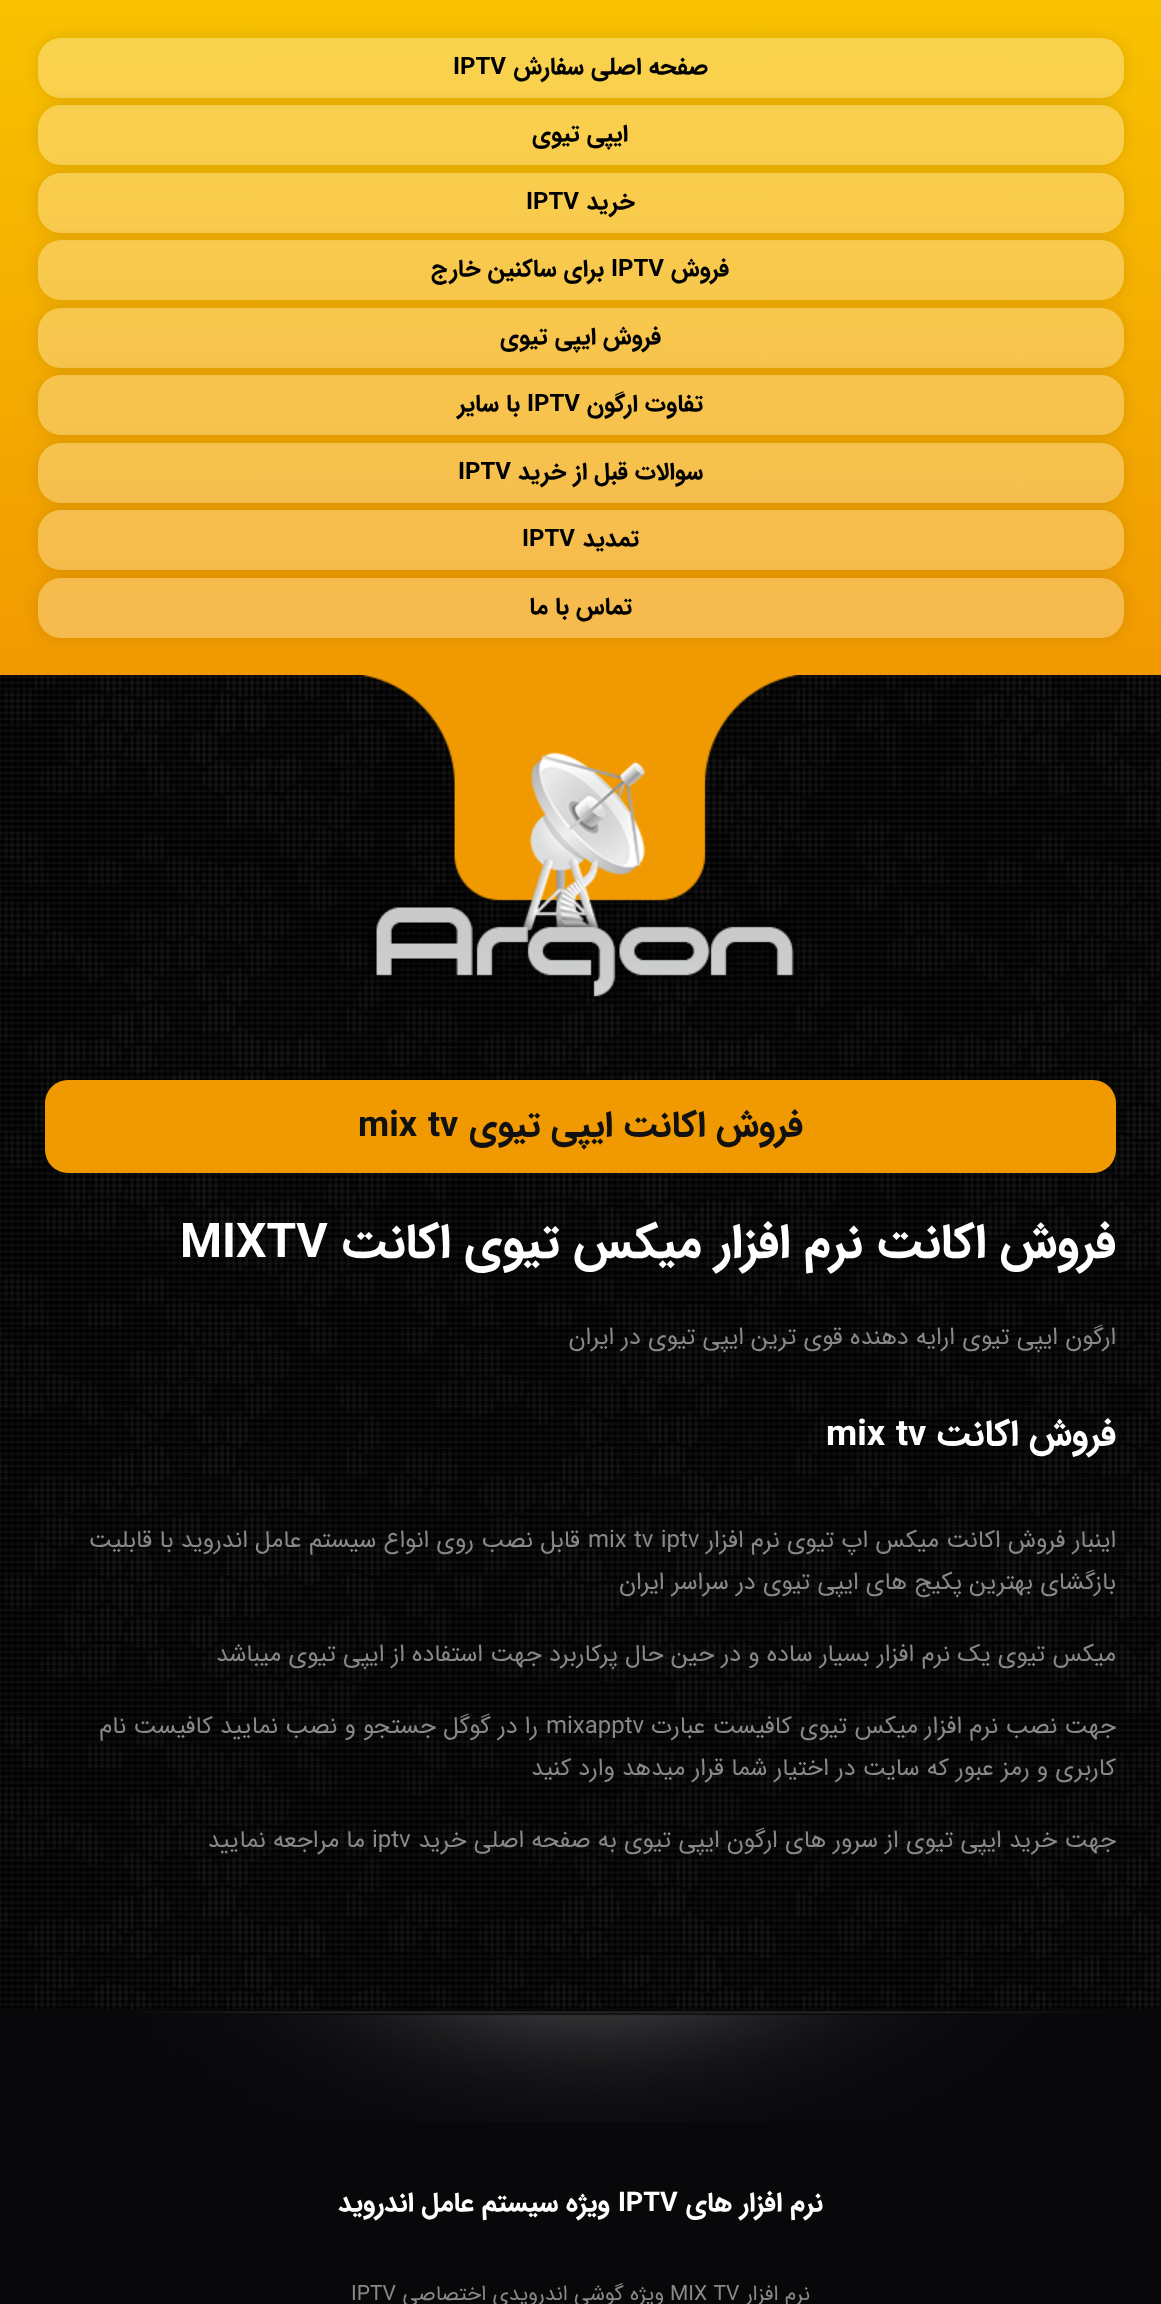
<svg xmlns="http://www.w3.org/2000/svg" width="1161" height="2304">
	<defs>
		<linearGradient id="g1" gradientUnits="userSpaceOnUse" x1="581" y1="0" x2="581" y2="675"><stop offset="0" stop-color="#F8C200" /><stop offset="1" stop-color="#F19900" /></linearGradient>
		<clipPath id="clip1"><path d="M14 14H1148V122H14ZM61 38H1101C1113.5 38 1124 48.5 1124 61V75C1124 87.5 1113.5 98 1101 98H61C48.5 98 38 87.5 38 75V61C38 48.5 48.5 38 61 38Z" clip-rule="evenodd" /></clipPath>
		<clipPath id="clip2"><path d="M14 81H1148V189H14ZM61 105H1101C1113.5 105 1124 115.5 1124 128V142C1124 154.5 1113.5 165 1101 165H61C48.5 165 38 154.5 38 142V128C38 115.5 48.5 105 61 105Z" clip-rule="evenodd" /></clipPath>
		<clipPath id="clip3"><path d="M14 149H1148V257H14ZM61 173H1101C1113.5 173 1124 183.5 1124 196V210C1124 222.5 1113.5 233 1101 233H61C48.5 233 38 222.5 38 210V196C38 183.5 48.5 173 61 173Z" clip-rule="evenodd" /></clipPath>
		<clipPath id="clip4"><path d="M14 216H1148V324H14ZM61 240H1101C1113.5 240 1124 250.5 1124 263V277C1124 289.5 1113.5 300 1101 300H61C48.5 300 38 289.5 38 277V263C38 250.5 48.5 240 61 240Z" clip-rule="evenodd" /></clipPath>
		<clipPath id="clip5"><path d="M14 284H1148V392H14ZM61 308H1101C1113.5 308 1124 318.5 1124 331V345C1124 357.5 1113.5 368 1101 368H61C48.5 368 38 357.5 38 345V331C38 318.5 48.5 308 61 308Z" clip-rule="evenodd" /></clipPath>
		<clipPath id="clip6"><path d="M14 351H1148V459H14ZM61 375H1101C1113.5 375 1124 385.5 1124 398V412C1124 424.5 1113.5 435 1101 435H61C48.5 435 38 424.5 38 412V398C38 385.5 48.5 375 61 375Z" clip-rule="evenodd" /></clipPath>
		<clipPath id="clip7"><path d="M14 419H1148V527H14ZM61 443H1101C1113.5 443 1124 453.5 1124 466V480C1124 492.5 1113.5 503 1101 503H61C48.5 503 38 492.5 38 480V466C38 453.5 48.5 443 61 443Z" clip-rule="evenodd" /></clipPath>
		<clipPath id="clip8"><path d="M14 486H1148V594H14ZM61 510H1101C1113.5 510 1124 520.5 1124 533V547C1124 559.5 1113.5 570 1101 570H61C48.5 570 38 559.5 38 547V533C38 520.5 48.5 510 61 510Z" clip-rule="evenodd" /></clipPath>
		<clipPath id="clip9"><path d="M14 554H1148V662H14ZM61 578H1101C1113.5 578 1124 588.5 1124 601V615C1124 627.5 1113.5 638 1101 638H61C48.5 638 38 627.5 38 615V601C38 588.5 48.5 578 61 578Z" clip-rule="evenodd" /></clipPath>
	</defs>
	<rect width="100%" height="100%" fill="#FFFFFF" />
	<rect x="0" y="0" width="1161" height="675" fill="url(#g1)" />
	<g clip-path="url(#clip1)">
		<rect x="38" y="38" width="1086" height="60" rx="23" fill="#000000" fill-opacity="0.1" filter="blur(7.5px)" />
	</g>
	<rect x="38" y="38" width="1086" height="60" rx="23" fill="#FFFFFF" fill-opacity="0.3" />
	<g clip-path="url(#clip2)">
		<rect x="38" y="105" width="1086" height="60" rx="23" fill="#000000" fill-opacity="0.1" filter="blur(7.5px)" />
	</g>
	<text x="708" y="74" font-family="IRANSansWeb" font-size="24" font-weight="700" direction="rtl" fill="#000000">صفحه اصلی سفارش</text>
	<text x="453" y="74" font-family="IRANSansWeb" font-size="24" font-weight="700" fill="#000000">IPTV</text>
	<rect x="38" y="105" width="1086" height="60" rx="23" fill="#FFFFFF" fill-opacity="0.3" />
	<g clip-path="url(#clip3)">
		<rect x="38" y="173" width="1086" height="60" rx="23" fill="#000000" fill-opacity="0.1" filter="blur(7.5px)" />
	</g>
	<text x="628" y="141" font-family="IRANSansWeb" font-size="24" font-weight="700" direction="rtl" fill="#000000">ایپی تیوی</text>
	<rect x="38" y="173" width="1086" height="60" rx="23" fill="#FFFFFF" fill-opacity="0.3" />
	<g clip-path="url(#clip4)">
		<rect x="38" y="240" width="1086" height="60" rx="23" fill="#000000" fill-opacity="0.1" filter="blur(7.5px)" />
	</g>
	<text x="635" y="209" font-family="IRANSansWeb" font-size="24" font-weight="700" direction="rtl" fill="#000000">خرید</text>
	<text x="526" y="209" font-family="IRANSansWeb" font-size="24" font-weight="700" fill="#000000">IPTV</text>
	<rect x="38" y="240" width="1086" height="60" rx="23" fill="#FFFFFF" fill-opacity="0.3" />
	<g clip-path="url(#clip5)">
		<rect x="38" y="308" width="1086" height="60" rx="23" fill="#000000" fill-opacity="0.1" filter="blur(7.5px)" />
	</g>
	<text x="729" y="276" font-family="IRANSansWeb" font-size="24" font-weight="700" direction="rtl" fill="#000000">فروش</text>
	<text x="611" y="276" font-family="IRANSansWeb" font-size="24" font-weight="700" fill="#000000">IPTV</text>
	<text x="604" y="276" font-family="IRANSansWeb" font-size="24" font-weight="700" direction="rtl" fill="#000000">برای ساکنین خارج</text>
	<rect x="38" y="308" width="1086" height="60" rx="23" fill="#FFFFFF" fill-opacity="0.3" />
	<g clip-path="url(#clip6)">
		<rect x="38" y="375" width="1086" height="60" rx="23" fill="#000000" fill-opacity="0.1" filter="blur(7.5px)" />
	</g>
	<text x="661" y="344" font-family="IRANSansWeb" font-size="24" font-weight="700" direction="rtl" fill="#000000">فروش ایپی تیوی</text>
	<rect x="38" y="375" width="1086" height="60" rx="23" fill="#FFFFFF" fill-opacity="0.3" />
	<g clip-path="url(#clip7)">
		<rect x="38" y="443" width="1086" height="60" rx="23" fill="#000000" fill-opacity="0.1" filter="blur(7.5px)" />
	</g>
	<text x="703" y="411" font-family="IRANSansWeb" font-size="24" font-weight="700" direction="rtl" fill="#000000">تفاوت ارگون</text>
	<text x="527" y="411" font-family="IRANSansWeb" font-size="24" font-weight="700" fill="#000000">IPTV</text>
	<text x="520" y="411" font-family="IRANSansWeb" font-size="24" font-weight="700" direction="rtl" fill="#000000">با سایر</text>
	<rect x="38" y="443" width="1086" height="60" rx="23" fill="#FFFFFF" fill-opacity="0.3" />
	<g clip-path="url(#clip8)">
		<rect x="38" y="510" width="1086" height="60" rx="23" fill="#000000" fill-opacity="0.1" filter="blur(7.5px)" />
	</g>
	<text x="703" y="479" font-family="IRANSansWeb" font-size="24" font-weight="700" direction="rtl" fill="#000000">سوالات قبل از خرید</text>
	<text x="458" y="479" font-family="IRANSansWeb" font-size="24" font-weight="700" fill="#000000">IPTV</text>
	<rect x="38" y="510" width="1086" height="60" rx="23" fill="#FFFFFF" fill-opacity="0.3" />
	<text x="639" y="546" font-family="IRANSansWeb" font-size="24" font-weight="700" direction="rtl" fill="#000000">تمدید</text>
	<text x="522" y="546" font-family="IRANSansWeb" font-size="24" font-weight="700" fill="#000000">IPTV</text>
	<g clip-path="url(#clip9)">
		<rect x="38" y="578" width="1086" height="60" rx="23" fill="#000000" fill-opacity="0.1" filter="blur(7.5px)" />
	</g>
	<rect x="38" y="578" width="1086" height="60" rx="23" fill="#FFFFFF" fill-opacity="0.3" />
	<text x="632" y="614" font-family="IRANSansWeb" font-size="24" font-weight="700" direction="rtl" fill="#000000">تماس با ما</text>
	<image x="0" y="675" width="1161" height="1334" href="assets/img1.png" />
	<image x="361" y="675" width="438" height="325" href="assets/img2.png" />
	<rect x="45" y="1080" width="1071" height="93" rx="23" fill="#F19900" />
	<text x="803" y="1136" font-family="IRANSansWeb" font-size="36" font-weight="700" direction="rtl" fill="#111111">فروش اکانت ایپی تیوی</text>
	<text x="358" y="1136" font-family="IRANSansWeb" font-size="36" font-weight="700" fill="#111111">mix tv</text>
	<text x="1116" y="1257" font-family="IRANSansWeb" font-size="48" font-weight="700" direction="rtl" fill="#FFFFFF">فروش اکانت نرم افزار میکس تیوی اکانت</text>
	<text x="180" y="1257" font-family="IRANSansWeb" font-size="48" font-weight="700" fill="#FFFFFF">MIXTV</text>
	<text x="1116" y="1344" font-family="IRANSansWeb" font-size="24" direction="rtl" fill="#888888">ارگون ایپی تیوی ارایه دهنده قوی ترین ایپی تیوی در ایران</text>
	<text x="1116" y="1445" font-family="IRANSansWeb" font-size="36" font-weight="700" direction="rtl" fill="#FFFFFF">فروش اکانت</text>
	<text x="826" y="1445" font-family="IRANSansWeb" font-size="36" font-weight="700" fill="#FFFFFF">mix tv</text>
	<text x="1116" y="1547" font-family="IRANSansWeb" font-size="24" direction="rtl" fill="#888888">اینبار فروش اکانت میکس اپ تیوی نرم افزار</text>
	<text x="588" y="1547" font-family="IRANSansWeb" font-size="24" fill="#888888">mix tv iptv</text>
	<g font-family="IRANSansWeb" font-size="24" direction="rtl" fill="#888888">
		<text x="580" y="1547">قابل نصب روی انواع سیستم عامل اندروید با قابلیت</text>
		<text x="1116" y="1589">بازگشای بهترین پکیج های ایپی تیوی در سراسر ایران</text>
		<text x="1116" y="1661">میکس تیوی یک نرم افزار بسیار ساده و در حین حال پرکاربرد جهت استفاده از ایپی تیوی میباشد</text>
		<text x="1116" y="1733">جهت نصب نرم افزار</text>
		<text x="918" y="1733">میکس تیوی</text>
		<text x="792" y="1733">کافیست عبارت</text>
	</g>
	<text x="546" y="1733" font-family="IRANSansWeb" font-size="24" fill="#888888">mixapptv</text>
	<g font-family="IRANSansWeb" font-size="24" direction="rtl" fill="#888888">
		<text x="538" y="1733">را در گوگل جستجو و نصب نمایید کافیست نام</text>
		<text x="1116" y="1775">کاربری و رمز عبور که سایت در اختیار شما قرار میدهد وارد کنید</text>
		<text x="1116" y="1847">جهت خرید ایپی تیوی از سرور های ارگون ایپی تیوی به صفحه اصلی خرید</text>
	</g>
	<text x="372" y="1847" font-family="IRANSansWeb" font-size="24" fill="#888888">iptv</text>
	<text x="365" y="1847" font-family="IRANSansWeb" font-size="24" direction="rtl" fill="#888888">ما مراجعه نمایید</text>
	<rect x="0" y="2009" width="1161" height="295" fill="#08080A" />
	<image x="14" y="2009" width="1135" height="113" href="assets/img3.png" />
	<text x="823" y="2211" font-family="IRANSansWeb" font-size="27" font-weight="700" direction="rtl" fill="#FFFFFF">نرم افزار های</text>
	<text x="618" y="2211" font-family="IRANSansWeb" font-size="27" font-weight="700" fill="#FFFFFF">IPTV</text>
	<text x="610" y="2211" font-family="IRANSansWeb" font-size="27" font-weight="700" direction="rtl" fill="#FFFFFF">ویژه سیستم عامل اندروید</text>
	<text x="810" y="2300" font-family="IRANSansWeb" font-size="21" direction="rtl" fill="#888888">نرم افزار</text>
	<text x="670" y="2300" font-family="IRANSansWeb" font-size="21" fill="#888888">MIX TV</text>
	<text x="664" y="2300" font-family="IRANSansWeb" font-size="21" direction="rtl" fill="#888888">ویژه گوشی اندرویدی اختصاصی</text>
	<text x="351" y="2300" font-family="IRANSansWeb" font-size="21" fill="#888888">IPTV</text>
</svg>
